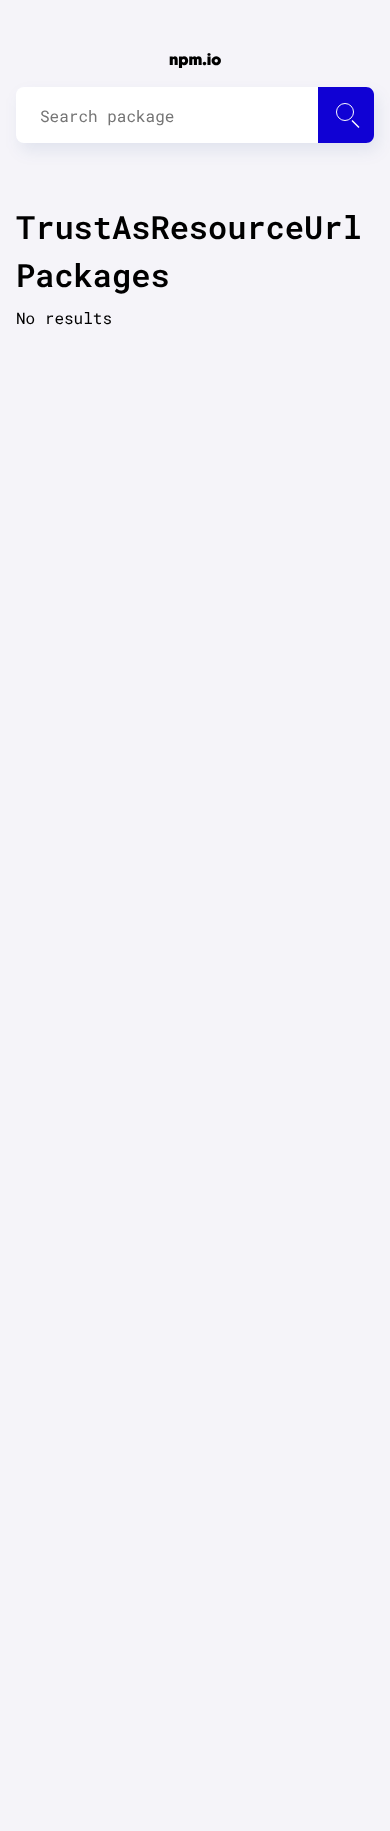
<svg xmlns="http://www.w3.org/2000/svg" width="390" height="1831">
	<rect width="100%" height="100%" fill="#F5F4F9" />
	<text x="169" y="65" font-family="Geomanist" font-size="16" font-weight="900" fill="#000000">npm.io</text>
	<rect x="20" y="95" width="358" height="56" rx="8" fill="#00306F" fill-opacity="0.08" filter="blur(8px)" />
	<rect x="16" y="87" width="358" height="56" rx="8" fill="#FFFFFF" />
	<text x="40" y="122" font-family="Roboto Mono" font-size="16" fill="#757575">Search package</text>
	<path d="M318 87H366C370.5 87 374 90.5 374 95V135C374 139.5 370.5 143 366 143H318Z" fill="#1001D4" />
	<circle cx="345" cy="112" r="8.5" fill="none" stroke="#FFFFFF" />
	<path d="M351.5 121L352.5 120L359.5 127L358.5 128Z" fill="#FFFFFF" />
	<g font-family="Roboto Mono" font-size="32" font-weight="600" fill="#000000">
		<text x="16" y="239">TrustAsResourceUrl</text>
		<text x="16" y="287">Packages</text>
	</g>
	<text x="16" y="324" font-family="Roboto Mono" font-size="16" fill="#000000">No results</text>
</svg>
